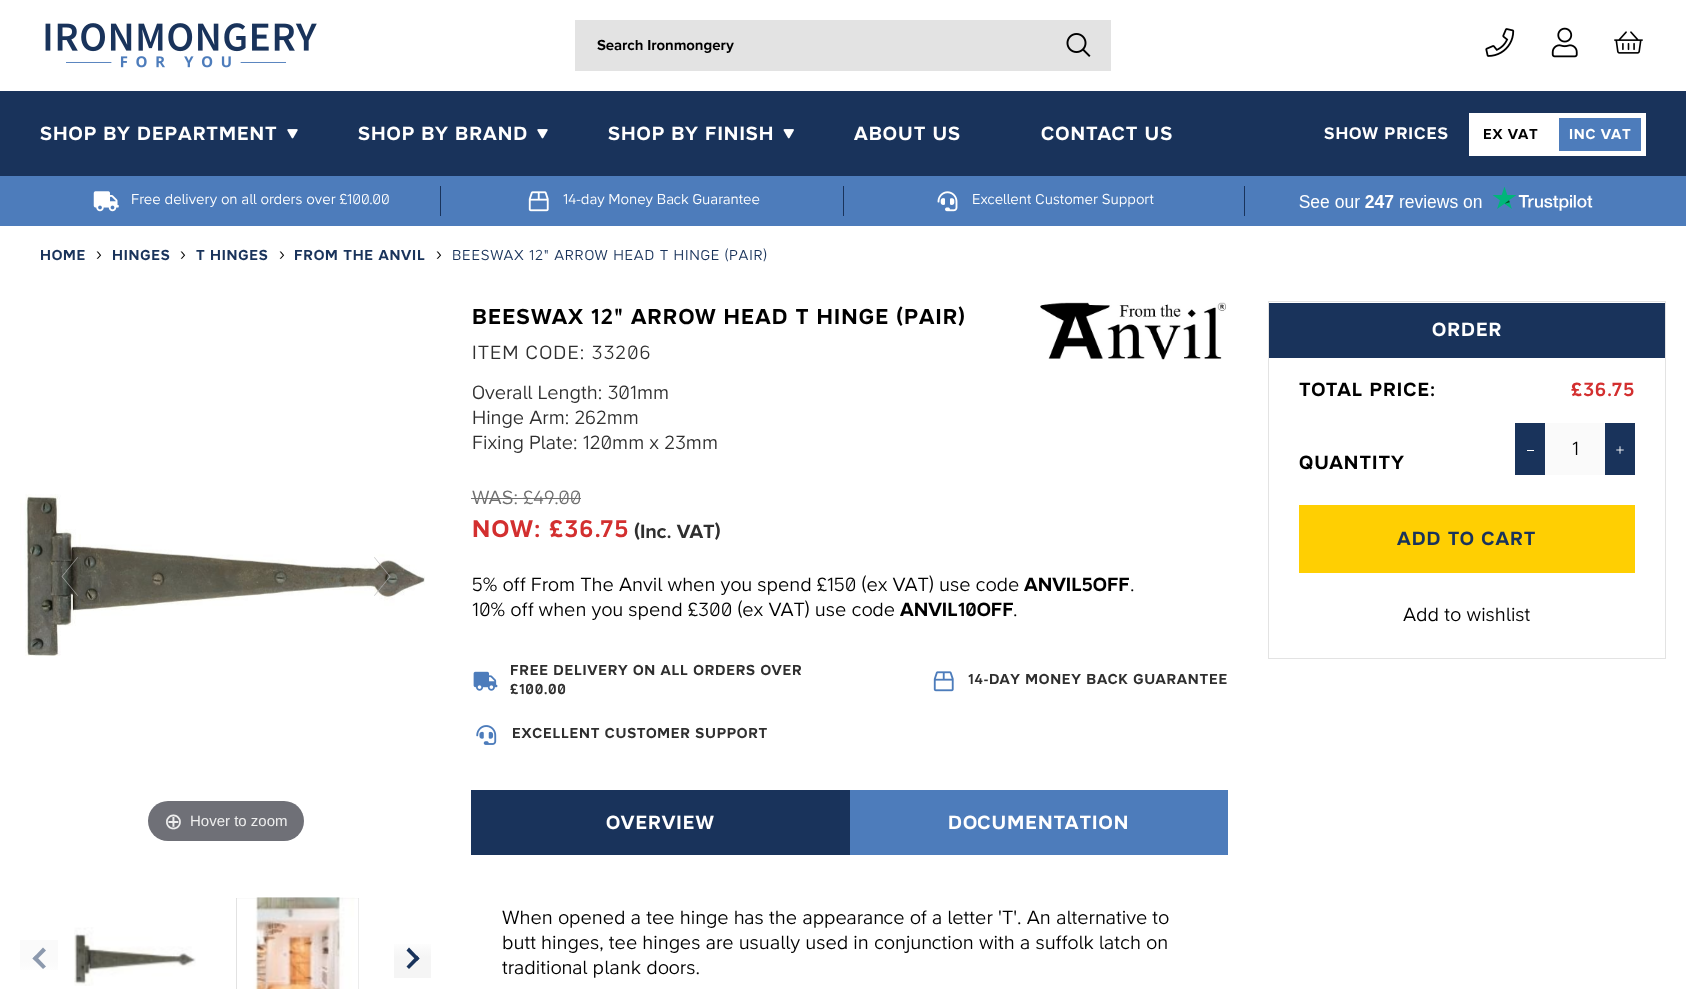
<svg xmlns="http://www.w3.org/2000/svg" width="1686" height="989">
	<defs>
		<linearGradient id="g1" gradientUnits="userSpaceOnUse" x1="39" y1="978" x2="39" y2="940"><stop offset="0" stop-color="#FFFFFF" /><stop offset="0.44" stop-color="#FAFAFA" /><stop offset="1" stop-color="#FAFAFA" /></linearGradient>
		<linearGradient id="g2" gradientUnits="userSpaceOnUse" x1="413" y1="940" x2="413" y2="978"><stop offset="0" stop-color="#FFFFFF" /><stop offset="0.44" stop-color="#F5F5F5" /><stop offset="1" stop-color="#F5F5F5" /></linearGradient>
	</defs>
	<rect width="100%" height="100%" fill="#FFFFFF" />
	<image x="45" y="23" width="272" height="45" href="assets/img1.png" />
	<rect x="575" y="20" width="536" height="51" fill="#E3E3E3" />
	<text x="597" y="50" font-family="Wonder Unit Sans" font-size="15" font-weight="700" fill="#000000">Search Ironmongery</text>
	<image x="1066" y="33" width="25" height="24" href="assets/img2.png" />
	<image x="1485" y="28" width="30" height="29" href="assets/img3.png" />
	<image x="1551" y="27" width="27" height="31" href="assets/img4.png" />
	<image x="1614" y="31" width="29" height="23" href="assets/img5.png" />
	<rect x="0" y="91" width="1686" height="85" fill="#19335B" />
	<text x="40" y="140" font-family="Wonder Unit Sans" font-size="20" font-weight="700" letter-spacing="1" fill="#FFFFFF">SHOP BY DEPARTMENT</text>
	<image x="287" y="129" width="11" height="10" href="assets/img6.png" />
	<text x="358" y="140" font-family="Wonder Unit Sans" font-size="20" font-weight="700" letter-spacing="1" fill="#FFFFFF">SHOP BY BRAND</text>
	<image x="537" y="129" width="11" height="10" href="assets/img6.png" />
	<text x="608" y="140" font-family="Wonder Unit Sans" font-size="20" font-weight="700" letter-spacing="1" fill="#FFFFFF">SHOP BY FINISH</text>
	<image x="783" y="129" width="11" height="10" href="assets/img7.png" />
	<g font-family="Wonder Unit Sans" font-size="20" font-weight="700" letter-spacing="1" fill="#FFFFFF">
		<text x="854" y="140">ABOUT US</text>
		<text x="1041" y="140">CONTACT US</text>
	</g>
	<text x="1324" y="139" font-family="Wonder Unit Sans" font-size="17.5" font-weight="700" letter-spacing="0.9" fill="#FFFFFF">SHOW PRICES</text>
	<rect x="1469" y="113" width="85" height="43" fill="#FFFFFF" />
	<text x="1483" y="139" font-family="Wonder Unit Sans" font-size="15" font-weight="700" letter-spacing="0.75" fill="#000000">EX VAT</text>
	<rect x="1556.5" y="115.5" width="87" height="38" fill="#4D7CBB" stroke="#FFFFFF" stroke-width="5" />
	<text x="1569" y="139" font-family="Wonder Unit Sans" font-size="15" font-weight="700" letter-spacing="0.75" fill="#FFFFFF">INC VAT</text>
	<rect x="0" y="176" width="1686" height="50" fill="#4D7CBB" />
	<rect x="440" y="186" width="1" height="30" fill="#19335B" />
	<image x="93" y="191" width="26" height="21" href="assets/img8.png" />
	<text x="131" y="204" font-family="Wonder Unit Sans" font-size="15" fill="#FFFFFF">Free delivery on all orders over £100.00</text>
	<rect x="843" y="186" width="1" height="30" fill="#19335B" />
	<image x="528" y="191" width="21" height="21" href="assets/img9.png" />
	<text x="563" y="204" font-family="Wonder Unit Sans" font-size="15" fill="#FFFFFF">14-day Money Back Guarantee</text>
	<rect x="1244" y="186" width="1" height="30" fill="#19335B" />
	<image x="937" y="191" width="21" height="21" href="assets/img10.png" />
	<text x="972" y="204" font-family="Wonder Unit Sans" font-size="15" fill="#FFFFFF">Excellent Customer Support</text>
	<image x="1299" y="187" width="294" height="24" href="assets/img11.png" />
	<text x="40" y="260" font-family="Wonder Unit Sans" font-size="15" font-weight="700" letter-spacing="0.75" fill="#19335B">HOME</text>
	<text x="96" y="260" font-family="Wonder Unit Sans" font-size="20" fill="#000000">›</text>
	<text x="112" y="260" font-family="Wonder Unit Sans" font-size="15" font-weight="700" letter-spacing="0.75" fill="#19335B">HINGES</text>
	<text x="180" y="260" font-family="Wonder Unit Sans" font-size="20" fill="#000000">›</text>
	<text x="196" y="260" font-family="Wonder Unit Sans" font-size="15" font-weight="700" letter-spacing="0.75" fill="#19335B">T HINGES</text>
	<text x="279" y="260" font-family="Wonder Unit Sans" font-size="20" fill="#000000">›</text>
	<text x="294" y="260" font-family="Wonder Unit Sans" font-size="15" font-weight="700" letter-spacing="0.75" fill="#19335B">FROM THE ANVIL</text>
	<text x="436" y="260" font-family="Wonder Unit Sans" font-size="20" fill="#000000">›</text>
	<text x="452" y="260" font-family="Wonder Unit Sans" font-size="15" letter-spacing="0.75" fill="#19335B">BEESWAX 12" ARROW HEAD T HINGE (PAIR)</text>
	<image x="20" y="494" width="405" height="162" href="assets/img12.png" />
	<path d="M61.5 576.5L77.5 557L78 557.5L62.5 576.5L78 595.5L77.5 596Z" fill="#B4B4B4" fill-opacity="0.75" />
	<path d="M390.5 576.5L374.5 596L374 595.5L389.5 576.5L374 557.5L374.5 557Z" fill="#B4B4B4" fill-opacity="0.75" />
	<rect x="148" y="801" width="156" height="40" rx="20" fill="#6F7077" />
	<text x="164" y="829" font-family="DejaVu Sans" font-size="22.5" fill="#EEEEEE">⊕</text>
	<text x="190" y="826" font-family="Liberation Sans" font-size="15" fill="#EEEEEE">Hover to zoom</text>
	<rect x="20" y="940" width="38" height="30" fill="url(#g1)" />
	<path d="M32.5 958.5L43 947.5L46 950.5L35.5 961Z" fill="#8C99AD" />
	<path d="M32.5 958.5L35.5 955.5L46 966.5L43 969Z" fill="#8C99AD" />
	<image x="74" y="927" width="122" height="59" href="assets/img13.png" />
	<rect x="236" y="898" width="123" height="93" fill="#000000" fill-opacity="0.3" filter="blur(0.5px)" />
	<image x="236" y="897" width="123" height="92" href="assets/img14.png" />
	<rect x="394" y="944" width="37" height="34" fill="url(#g2)" />
	<path d="M419.5 958.5L409 969L406.5 966.5L417 955.5Z" fill="#19335B" />
	<path d="M419.5 958.5L417 961L406.5 950.5L409 947.5Z" fill="#19335B" />
	<text x="472" y="324" font-family="Wonder Unit Sans" font-size="22.5" font-weight="700" letter-spacing="1.1" fill="#000000">BEESWAX 12" ARROW HEAD T HINGE (PAIR)</text>
	<text x="472" y="359" font-family="Wonder Unit Sans" font-size="20" letter-spacing="1" fill="#2F2F2F">ITEM CODE: 33206</text>
	<g font-family="Wonder Unit Sans" font-size="20" fill="#2F2F2F">
		<text x="472" y="399">Overall Length: 301mm</text>
		<text x="472" y="424">Hinge Arm: 262mm</text>
		<text x="472" y="449">Fixing Plate: 120mm x 23mm</text>
	</g>
	<image x="1040" y="302" width="186" height="58" href="assets/img15.png" />
	<text x="472" y="504" font-family="Wonder Unit Sans" font-size="20" fill="#6F6F6F">WAS: £49.00</text>
	<rect x="471" y="498" width="110" height="1" fill="#6F6F6F" />
	<text x="472" y="537" font-family="Wonder Unit Sans" font-size="25" font-weight="700" letter-spacing="1.25" fill="#D32F2F">NOW: £36.75</text>
	<text x="634" y="538" font-family="Wonder Unit Sans" font-size="20" font-weight="700" fill="#2F2F2F">(Inc. VAT)</text>
	<rect x="1268.5" y="301.5" width="397" height="357" fill="none" stroke="#E3E3E3" />
	<rect x="1269" y="303" width="396" height="55" fill="#19335B" />
	<text x="1432" y="336" font-family="Wonder Unit Sans" font-size="20" font-weight="700" letter-spacing="1" fill="#FFFFFF">ORDER</text>
	<text x="1299" y="396" font-family="Wonder Unit Sans" font-size="20" font-weight="700" letter-spacing="1" fill="#000000">TOTAL PRICE:</text>
	<text x="1571" y="396" font-family="Wonder Unit Sans" font-size="20" font-weight="700" letter-spacing="1" fill="#D32F2F">£36.75</text>
	<rect x="1515" y="423" width="30" height="52" fill="#19335B" />
	<rect x="1527" y="450" width="7" height="1" fill="#FFFFFF" />
	<rect x="1545" y="423" width="60" height="52" fill="#FAFAFA" />
	<text x="1572" y="455" font-family="Wonder Unit Sans" font-size="20" fill="#000000">1</text>
	<rect x="1605" y="423" width="30" height="52" fill="#19335B" />
	<image x="1616" y="446" width="8" height="8" href="assets/img16.png" />
	<text x="1299" y="469" font-family="Wonder Unit Sans" font-size="20" font-weight="700" letter-spacing="1" fill="#000000">QUANTITY</text>
	<rect x="1299" y="505" width="336" height="68" fill="#FFCF02" />
	<text x="1397" y="545" font-family="Wonder Unit Sans" font-size="20" font-weight="700" letter-spacing="1" fill="#19335B">ADD TO CART</text>
	<g font-family="Wonder Unit Sans" font-size="20" fill="#000000">
		<text x="1403" y="621">Add to wishlist</text>
		<text x="472" y="591">5% off From The Anvil when you spend £150 (ex VAT) use code</text>
	</g>
	<text x="1024" y="591" font-family="Wonder Unit Sans" font-size="20" font-weight="700" fill="#000000">ANVIL5OFF</text>
	<g font-family="Wonder Unit Sans" font-size="20" fill="#000000">
		<text x="1130" y="591">.</text>
		<text x="472" y="616">10% off when you spend £300 (ex VAT) use code</text>
	</g>
	<text x="900" y="616" font-family="Wonder Unit Sans" font-size="20" font-weight="700" fill="#000000">ANVIL10OFF</text>
	<text x="1013" y="616" font-family="Wonder Unit Sans" font-size="20" fill="#000000">.</text>
	<image x="473" y="671" width="25" height="20" href="assets/img17.png" />
	<g font-family="Wonder Unit Sans" font-size="15" font-weight="700" letter-spacing="0.75" fill="#2F2F2F">
		<text x="510" y="675">FREE DELIVERY ON ALL ORDERS OVER</text>
		<text x="510" y="694">£100.00</text>
	</g>
	<image x="933" y="671" width="21" height="21" href="assets/img18.png" />
	<text x="968" y="684" font-family="Wonder Unit Sans" font-size="15" font-weight="700" letter-spacing="0.75" fill="#2F2F2F">14-DAY MONEY BACK GUARANTEE</text>
	<image x="476" y="725" width="21" height="20" href="assets/img19.png" />
	<text x="512" y="738" font-family="Wonder Unit Sans" font-size="15" font-weight="700" letter-spacing="0.75" fill="#2F2F2F">EXCELLENT CUSTOMER SUPPORT</text>
	<rect x="471" y="790" width="379" height="65" fill="#19335B" />
	<text x="606" y="829" font-family="Wonder Unit Sans" font-size="20" font-weight="700" letter-spacing="1" fill="#FFFFFF">OVERVIEW</text>
	<rect x="850" y="790" width="378" height="65" fill="#4D7CBB" />
	<text x="948" y="829" font-family="Wonder Unit Sans" font-size="20" font-weight="700" letter-spacing="1" fill="#FFFFFF">DOCUMENTATION</text>
	<g font-family="Wonder Unit Sans" font-size="20" fill="#000000">
		<text x="502" y="924">When opened a tee hinge has the appearance of a letter 'T'. An alternative to</text>
		<text x="502" y="949">butt hinges, tee hinges are usually used in conjunction with a suffolk latch on</text>
		<text x="502" y="974">traditional plank doors.</text>
	</g>
</svg>
